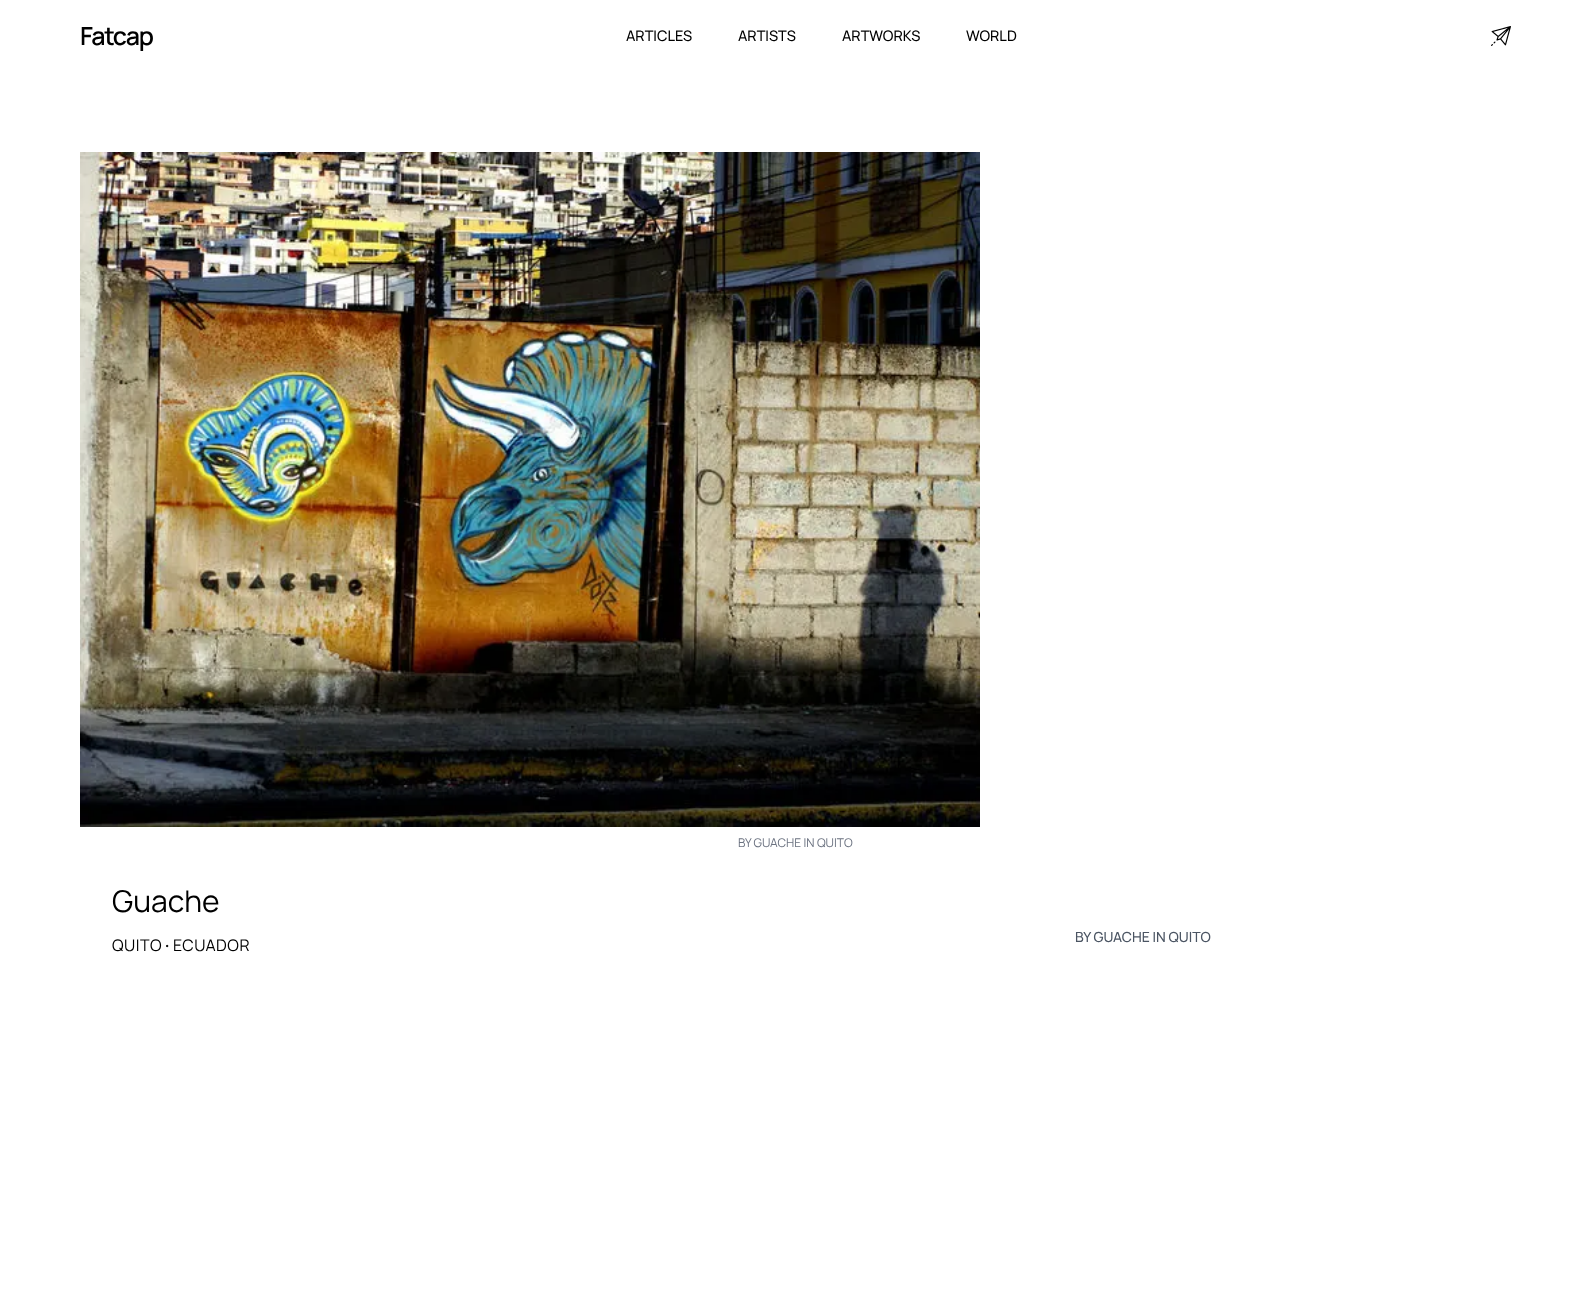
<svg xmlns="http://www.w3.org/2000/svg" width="1590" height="1294">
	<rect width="100%" height="100%" fill="#FFFFFF" />
	<text x="80" y="45" font-family="Manrope" font-size="25" font-weight="600" letter-spacing="-1.25" fill="#000000">Fatcap</text>
	<g font-family="Manrope" font-size="14.5" font-weight="500" fill="#000000">
		<text x="626" y="41">ARTICLES</text>
		<text x="738" y="41">ARTISTS</text>
		<text x="842" y="41">ARTWORKS</text>
		<text x="966" y="41">WORLD</text>
	</g>
	<image x="1491" y="26" width="20" height="20" href="assets/img1.png" />
	<image x="80" y="152" width="900" height="675" href="assets/img2.png" />
	<text x="738" y="847" font-family="Manrope" font-size="12" fill="#6B7280">BY GUACHE IN QUITO</text>
	<text x="112" y="912" font-family="Manrope" font-size="30" fill="#000000">Guache</text>
	<text x="112" y="951" font-family="Manrope" font-size="16" letter-spacing="0.5" fill="#000000">QUITO</text>
	<text x="165" y="951" font-family="Manrope" font-size="16" font-weight="700" fill="#000000">·</text>
	<text x="173" y="951" font-family="Manrope" font-size="16" letter-spacing="0.5" fill="#000000">ECUADOR</text>
	<text x="1075" y="942" font-family="Manrope" font-size="14" font-weight="500" fill="#4B5563">BY GUACHE IN QUITO</text>
</svg>
